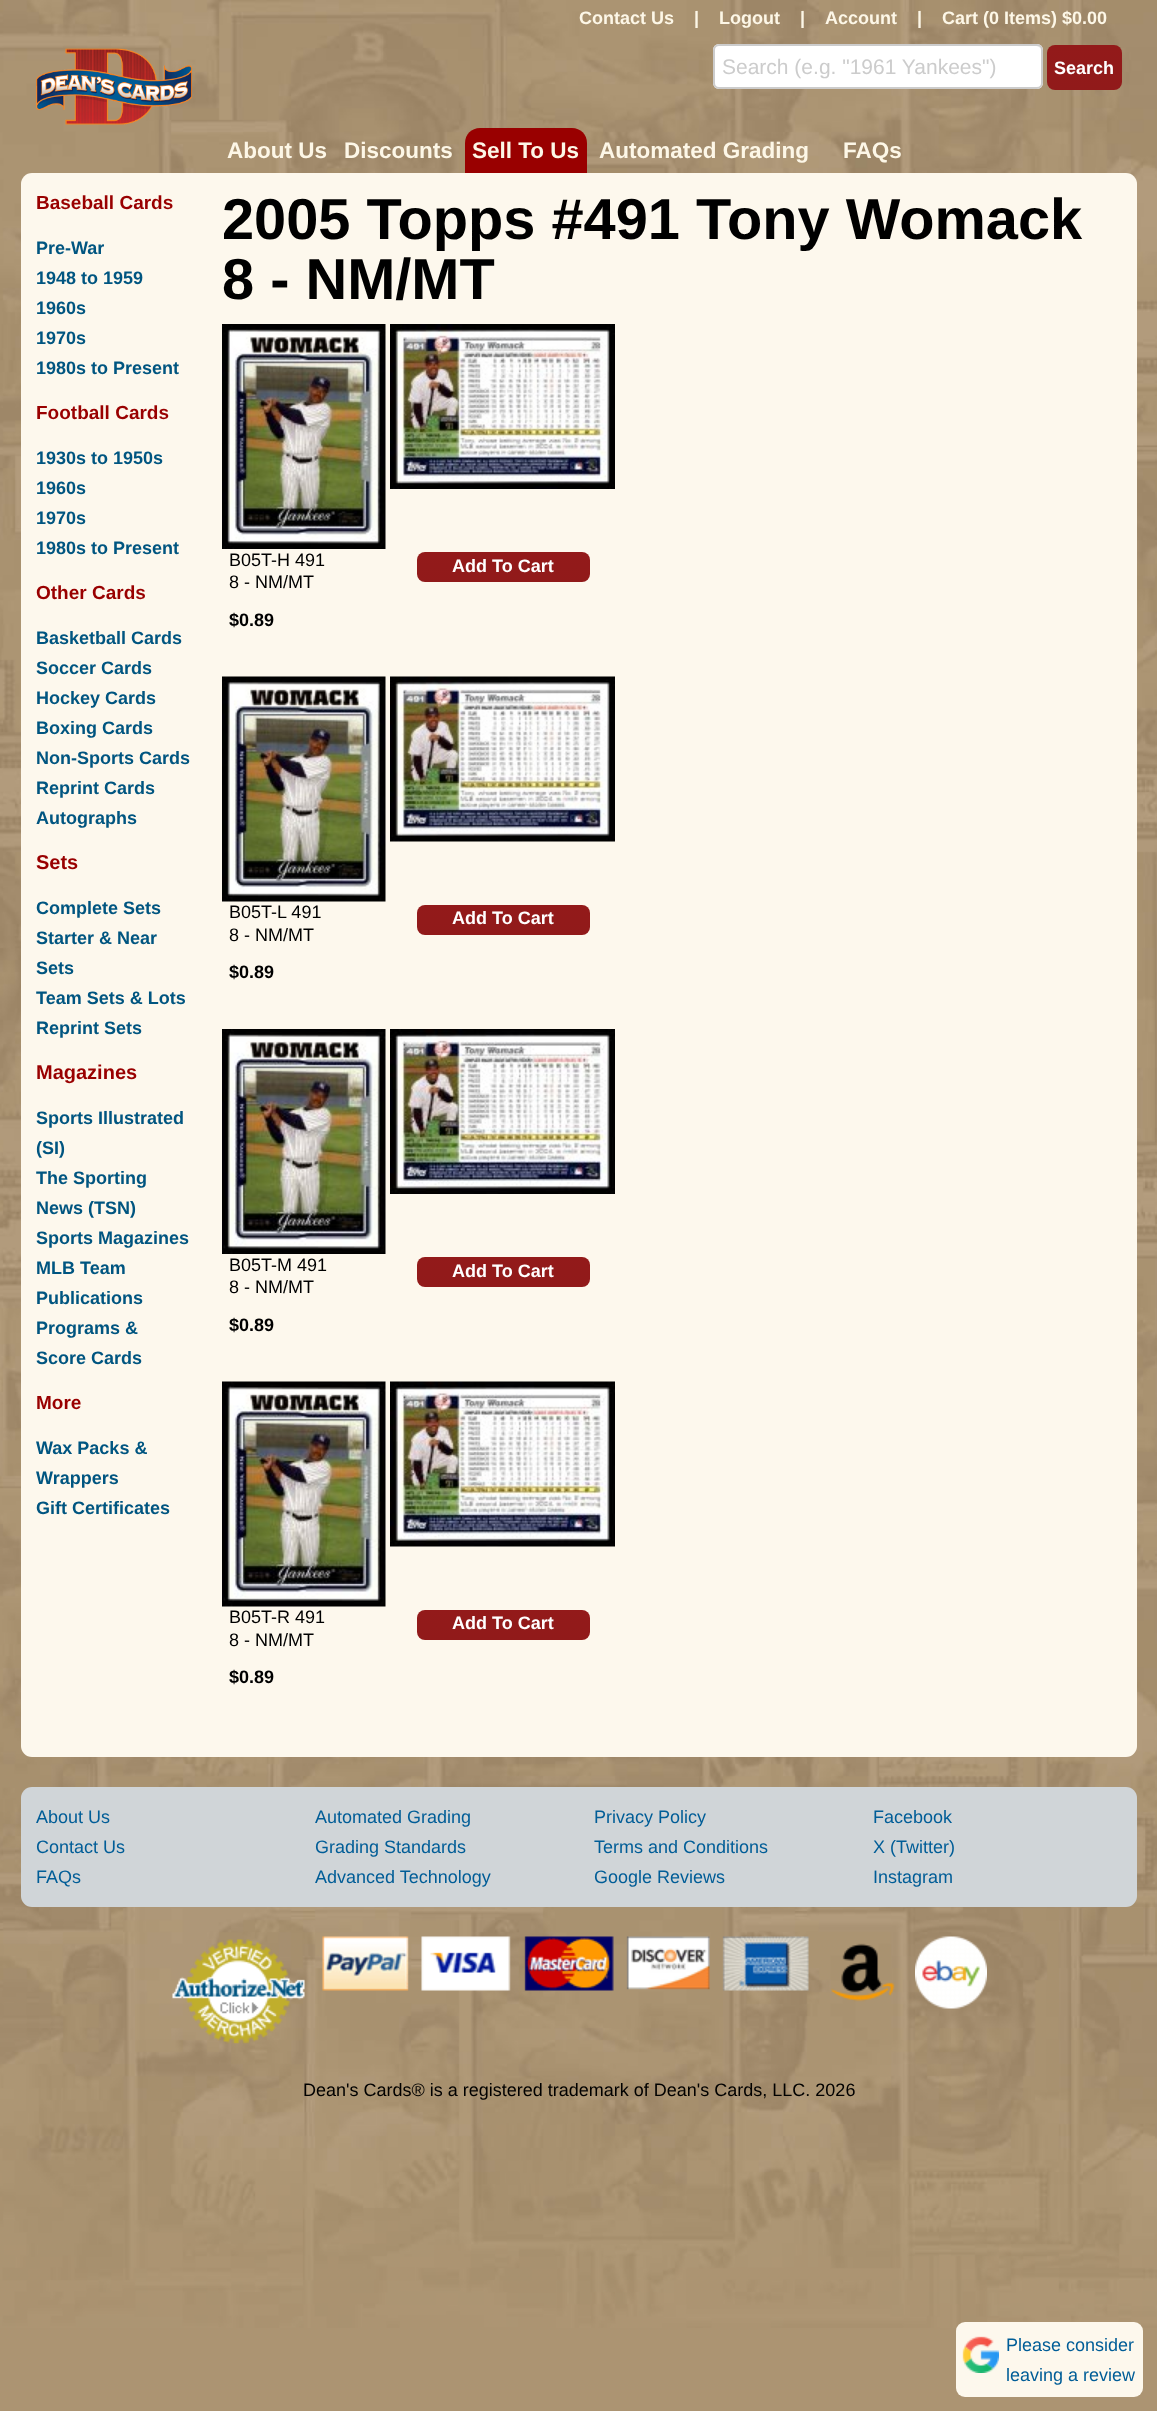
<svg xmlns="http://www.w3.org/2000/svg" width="1157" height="2411">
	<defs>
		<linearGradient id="g1" gradientUnits="userSpaceOnUse" x1="1085" y1="45" x2="1085" y2="90"><stop offset="0" stop-color="#931A1A" /><stop offset="1" stop-color="#911A1A" /></linearGradient>
		<linearGradient id="g2" gradientUnits="userSpaceOnUse" x1="503" y1="552" x2="503" y2="582"><stop offset="0" stop-color="#931A1A" /><stop offset="1" stop-color="#911A1A" /></linearGradient>
		<linearGradient id="g3" gradientUnits="userSpaceOnUse" x1="503" y1="905" x2="503" y2="935"><stop offset="0" stop-color="#931A1A" /><stop offset="1" stop-color="#911A1A" /></linearGradient>
		<linearGradient id="g4" gradientUnits="userSpaceOnUse" x1="503" y1="1257" x2="503" y2="1287"><stop offset="0" stop-color="#931A1A" /><stop offset="1" stop-color="#911A1A" /></linearGradient>
		<linearGradient id="g5" gradientUnits="userSpaceOnUse" x1="503" y1="1610" x2="503" y2="1640"><stop offset="0" stop-color="#931A1A" /><stop offset="1" stop-color="#911A1A" /></linearGradient>
	</defs>
	<rect width="100%" height="100%" fill="#AC9472" />
	<image x="0" y="0" width="1157" height="2328" href="assets/img1.png" />
	<image x="36" y="48" width="156" height="77" href="assets/img2.png" />
	<g font-family="Liberation Sans" font-size="18" font-weight="700" fill="#FDF7E7">
		<text x="579" y="24">Contact Us</text>
		<text x="694" y="24">|</text>
		<text x="719" y="24">Logout</text>
		<text x="800" y="24">|</text>
		<text x="825" y="24">Account</text>
		<text x="917" y="24">|</text>
		<text x="942" y="24">Cart (0 Items) $0.00</text>
	</g>
	<rect x="713" y="44" width="330" height="45" rx="6" fill="#FFFFFF" />
	<path d="M718 46H1036C1039 46 1041 49 1041 51C1041 48 1039 45 1036 45H719C716 45 714 48 714 51C714 49 716 46 718 46Z" fill="#ECECEC" />
	<rect x="714" y="45" width="328" height="43" rx="5" fill="none" stroke="#CCCCCC" stroke-width="2" />
	<text x="722" y="74" font-family="Liberation Sans" font-size="21" fill="#CCCCCC">Search (e.g. "1961 Yankees")</text>
	<rect x="1047" y="45" width="75" height="45" rx="8" fill="url(#g1)" />
	<text x="1054" y="74" font-family="Liberation Sans" font-size="18" font-weight="700" fill="#FFFFFF">Search</text>
	<g font-family="Liberation Sans" font-size="22.5" font-weight="700" fill="#FDF7E7">
		<text x="227" y="158">About Us</text>
		<text x="344" y="158">Discounts</text>
	</g>
	<path d="M480 128H572C580.5 128 587 134.5 587 143V173H465V143C465 134.5 471.5 128 480 128Z" fill="#990000" />
	<g font-family="Liberation Sans" font-size="22.5" font-weight="700" fill="#FDF7E7">
		<text x="472" y="158">Sell To Us</text>
		<text x="599" y="158">Automated Grading</text>
		<text x="843" y="158">FAQs</text>
	</g>
	<rect x="21" y="173" width="1116" height="1584" rx="11" fill="#FDF8ED" />
	<text x="36" y="209" font-family="Liberation Sans" font-size="19" font-weight="700" fill="#990000">Baseball Cards</text>
	<g font-family="Liberation Sans" font-size="18" font-weight="700" fill="#005580">
		<text x="36" y="254">Pre-War</text>
		<text x="36" y="284">1948 to 1959</text>
		<text x="36" y="314">1960s</text>
		<text x="36" y="344">1970s</text>
		<text x="36" y="374">1980s to Present</text>
	</g>
	<text x="36" y="419" font-family="Liberation Sans" font-size="19" font-weight="700" fill="#990000">Football Cards</text>
	<g font-family="Liberation Sans" font-size="18" font-weight="700" fill="#005580">
		<text x="36" y="464">1930s to 1950s</text>
		<text x="36" y="494">1960s</text>
		<text x="36" y="524">1970s</text>
		<text x="36" y="554">1980s to Present</text>
	</g>
	<text x="36" y="599" font-family="Liberation Sans" font-size="19" font-weight="700" fill="#990000">Other Cards</text>
	<g font-family="Liberation Sans" font-size="18" font-weight="700" fill="#005580">
		<text x="36" y="644">Basketball Cards</text>
		<text x="36" y="674">Soccer Cards</text>
		<text x="36" y="704">Hockey Cards</text>
		<text x="36" y="734">Boxing Cards</text>
		<text x="36" y="764">Non-Sports Cards</text>
		<text x="36" y="794">Reprint Cards</text>
		<text x="36" y="824">Autographs</text>
	</g>
	<text x="36" y="869" font-family="Liberation Sans" font-size="20" font-weight="700" fill="#990000">Sets</text>
	<g font-family="Liberation Sans" font-size="18" font-weight="700" fill="#005580">
		<text x="36" y="914">Complete Sets</text>
		<text x="36" y="944">Starter &amp; Near</text>
		<text x="36" y="974">Sets</text>
		<text x="36" y="1004">Team Sets &amp; Lots</text>
		<text x="36" y="1034">Reprint Sets</text>
	</g>
	<text x="36" y="1079" font-family="Liberation Sans" font-size="20" font-weight="700" fill="#990000">Magazines</text>
	<g font-family="Liberation Sans" font-size="18" font-weight="700" fill="#005580">
		<text x="36" y="1124">Sports Illustrated</text>
		<text x="36" y="1154">(SI)</text>
		<text x="36" y="1184">The Sporting</text>
		<text x="36" y="1214">News (TSN)</text>
		<text x="36" y="1244">Sports Magazines</text>
		<text x="36" y="1274">MLB Team</text>
		<text x="36" y="1304">Publications</text>
		<text x="36" y="1334">Programs &amp;</text>
		<text x="36" y="1364">Score Cards</text>
	</g>
	<text x="36" y="1409" font-family="Liberation Sans" font-size="19" font-weight="700" fill="#990000">More</text>
	<g font-family="Liberation Sans" font-size="18" font-weight="700" fill="#005580">
		<text x="36" y="1454">Wax Packs &amp;</text>
		<text x="36" y="1484">Wrappers</text>
		<text x="36" y="1514">Gift Certificates</text>
	</g>
	<g font-family="Liberation Sans" font-size="57.75" font-weight="700" fill="#000000">
		<text x="222" y="239">2005 Topps #491 Tony Womack</text>
		<text x="222" y="299">8 - NM/MT</text>
	</g>
	<image x="222" y="324" width="164" height="225" href="assets/img3.png" />
	<g font-family="Liberation Sans" font-size="18" fill="#000000">
		<text x="229" y="566">B05T-H 491</text>
		<text x="229" y="588">8 - NM/MT</text>
	</g>
	<text x="229" y="626" font-family="Liberation Sans" font-size="18" font-weight="700" fill="#000000">$0.89</text>
	<image x="390" y="324" width="225" height="165" href="assets/img4.png" />
	<rect x="417" y="552" width="173" height="30" rx="8" fill="url(#g2)" />
	<text x="452" y="572" font-family="Liberation Sans" font-size="18" font-weight="700" fill="#FFFFFF">Add To Cart</text>
	<image x="222" y="676" width="164" height="226" href="assets/img5.png" />
	<g font-family="Liberation Sans" font-size="18" fill="#000000">
		<text x="229" y="918">B05T-L 491</text>
		<text x="229" y="941">8 - NM/MT</text>
	</g>
	<text x="229" y="978" font-family="Liberation Sans" font-size="18" font-weight="700" fill="#000000">$0.89</text>
	<image x="390" y="676" width="225" height="166" href="assets/img6.png" />
	<rect x="417" y="905" width="173" height="30" rx="8" fill="url(#g3)" />
	<text x="452" y="924" font-family="Liberation Sans" font-size="18" font-weight="700" fill="#FFFFFF">Add To Cart</text>
	<image x="222" y="1029" width="164" height="225" href="assets/img7.png" />
	<g font-family="Liberation Sans" font-size="18" fill="#000000">
		<text x="229" y="1271">B05T-M 491</text>
		<text x="229" y="1293">8 - NM/MT</text>
	</g>
	<text x="229" y="1331" font-family="Liberation Sans" font-size="18" font-weight="700" fill="#000000">$0.89</text>
	<image x="390" y="1029" width="225" height="165" href="assets/img8.png" />
	<rect x="417" y="1257" width="173" height="30" rx="8" fill="url(#g4)" />
	<text x="452" y="1277" font-family="Liberation Sans" font-size="18" font-weight="700" fill="#FFFFFF">Add To Cart</text>
	<image x="222" y="1381" width="164" height="226" href="assets/img9.png" />
	<g font-family="Liberation Sans" font-size="18" fill="#000000">
		<text x="229" y="1623">B05T-R 491</text>
		<text x="229" y="1646">8 - NM/MT</text>
	</g>
	<text x="229" y="1683" font-family="Liberation Sans" font-size="18" font-weight="700" fill="#000000">$0.89</text>
	<image x="390" y="1381" width="225" height="166" href="assets/img10.png" />
	<rect x="417" y="1610" width="173" height="30" rx="8" fill="url(#g5)" />
	<text x="452" y="1629" font-family="Liberation Sans" font-size="18" font-weight="700" fill="#FFFFFF">Add To Cart</text>
	<rect x="21" y="1787" width="1116" height="120" rx="11" fill="#D0D5D8" />
	<g font-family="Liberation Sans" font-size="18" fill="#005D97">
		<text x="36" y="1823">About Us</text>
		<text x="36" y="1853">Contact Us</text>
		<text x="36" y="1883">FAQs</text>
		<text x="315" y="1823">Automated Grading</text>
		<text x="315" y="1853">Grading Standards</text>
		<text x="315" y="1883">Advanced Technology</text>
		<text x="594" y="1823">Privacy Policy</text>
		<text x="594" y="1853">Terms and Conditions</text>
		<text x="594" y="1883">Google Reviews</text>
		<text x="873" y="1823">Facebook</text>
		<text x="873" y="1853">X (Twitter)</text>
		<text x="873" y="1883">Instagram</text>
	</g>
	<image x="172" y="1939" width="133" height="105" href="assets/img11.png" />
	<image x="322" y="1936" width="487" height="55" href="assets/img12.png" />
	<image x="831" y="1943" width="64" height="59" href="assets/img13.png" />
	<image x="915" y="1936" width="72" height="73" href="assets/img14.png" />
	<text x="303" y="2096" font-family="Liberation Sans" font-size="18" fill="#000000">Dean's Cards® is a registered trademark of Dean's Cards, LLC. 2026</text>
	<rect x="956" y="2322" width="187" height="75" rx="9" fill="#FDF8ED" />
	<image x="962" y="2336" width="37" height="37" href="assets/img15.png" />
	<g font-family="Liberation Sans" font-size="18" fill="#005D97">
		<text x="1006" y="2351">Please consider</text>
		<text x="1006" y="2381">leaving a review</text>
	</g>
</svg>
